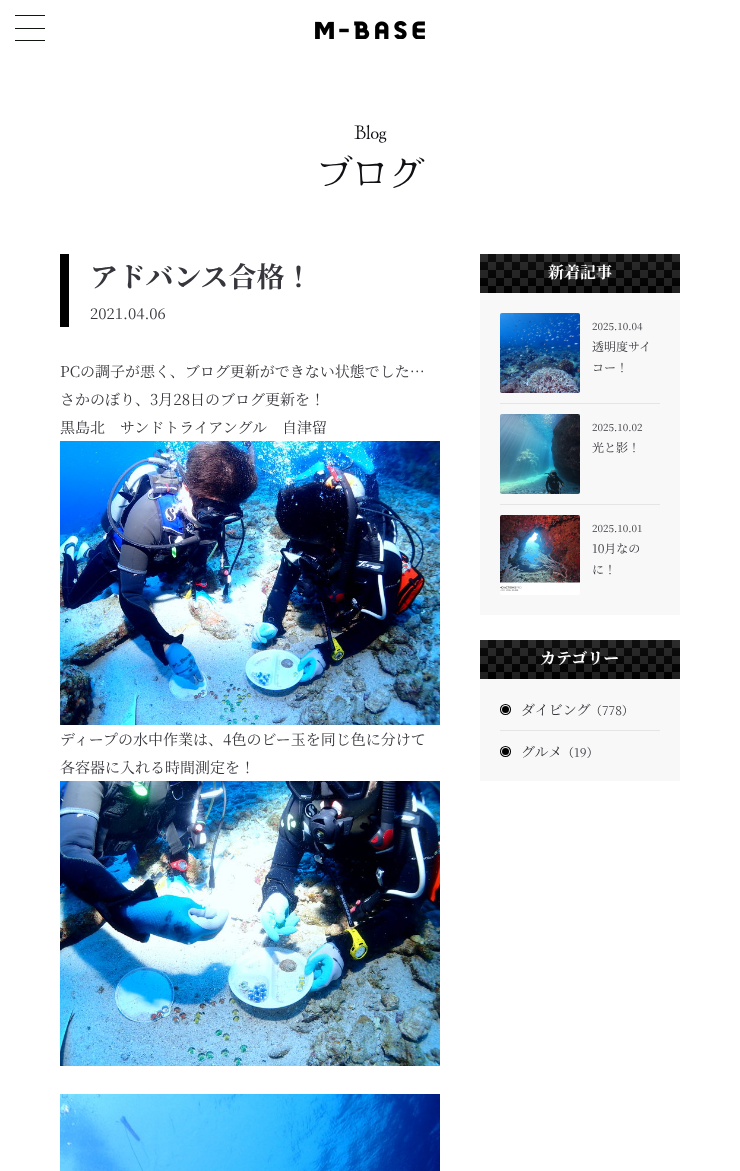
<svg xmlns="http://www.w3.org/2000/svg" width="740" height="1171">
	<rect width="100%" height="100%" fill="#FFFFFF" />
	<rect x="15" y="15" width="30" height="1" fill="#101711" />
	<rect x="15" y="28" width="30" height="1" fill="#101711" />
	<rect x="15" y="40" width="30" height="1" fill="#101711" />
	<image x="315" y="21" width="110" height="18" href="assets/img1.png" />
	<text x="354" y="139" font-family="Hina Mincho" font-size="20" fill="#101015">Blog</text>
	<text x="316" y="187" font-family="Hina Mincho" font-size="36" fill="#101015">ブログ</text>
	<rect x="60" y="254" width="9" height="73" fill="#000000" />
	<text x="90" y="287" font-family="Noto Serif JP" font-size="28" font-weight="700" fill="#36363C">アドバンス合格！</text>
	<g font-family="Noto Serif JP" font-size="15" fill="#36363C">
		<text x="90" y="319">2021.04.06</text>
		<text x="60" y="377">PCの調子が悪く、ブログ更新ができない状態でした…</text>
		<text x="60" y="405">さかのぼり、3月28日のブログ更新を！</text>
		<text x="60" y="433">黒島北　サンドトライアングル　自津留</text>
	</g>
	<image x="60" y="441" width="380" height="284" href="assets/img2.png" />
	<g font-family="Noto Serif JP" font-size="15" fill="#36363C">
		<text x="60" y="745">ディープの水中作業は、4色のビー玉を同じ色に分けて</text>
		<text x="60" y="773">各容器に入れる時間測定を！</text>
	</g>
	<image x="60" y="781" width="380" height="285" href="assets/img3.png" />
	<image x="60" y="1094" width="380" height="77" href="assets/img4.png" />
	<image x="480" y="254" width="200" height="39" href="assets/img5.png" />
	<text x="548" y="278" font-family="Noto Serif JP" font-size="16" font-weight="700" fill="#FFFFFF">新着記事</text>
	<rect x="480" y="293" width="200" height="322" fill="#F8F8F8" />
	<image x="500" y="313" width="80" height="80" href="assets/img6.png" />
	<text x="592" y="330" font-family="Noto Serif JP" font-size="10" fill="#36363C">2025.10.04</text>
	<g font-family="Noto Serif JP" font-size="12" fill="#36363C">
		<text x="592" y="351">透明度サイ</text>
		<text x="592" y="372">コー！</text>
	</g>
	<rect x="500" y="403" width="160" height="1" fill="#E5E5E5" />
	<image x="500" y="414" width="80" height="80" href="assets/img7.png" />
	<text x="592" y="431" font-family="Noto Serif JP" font-size="10" fill="#36363C">2025.10.02</text>
	<text x="592" y="452" font-family="Noto Serif JP" font-size="12" fill="#36363C">光と影！</text>
	<rect x="500" y="504" width="160" height="1" fill="#E5E5E5" />
	<image x="500" y="515" width="80" height="80" href="assets/img8.png" />
	<text x="592" y="532" font-family="Noto Serif JP" font-size="10" fill="#36363C">2025.10.01</text>
	<g font-family="Noto Serif JP" font-size="12" fill="#36363C">
		<text x="592" y="553">10月なの</text>
		<text x="592" y="574">に！</text>
	</g>
	<image x="480" y="640" width="200" height="39" href="assets/img5.png" />
	<text x="540" y="664" font-family="Noto Serif JP" font-size="16" font-weight="700" fill="#FFFFFF">カテゴリー</text>
	<rect x="480" y="679" width="200" height="102" fill="#F8F8F8" />
	<circle cx="505.5" cy="709.5" r="5" fill="none" stroke="#000000" stroke-width="1.1" />
	<circle cx="505.5" cy="709.5" r="3.5" fill="#000000" />
	<text x="521" y="715" font-family="Noto Serif JP" font-size="14" fill="#36363C">ダイビング</text>
	<text x="590" y="715" font-family="Noto Serif JP" font-size="12" fill="#36363C">（778）</text>
	<rect x="500" y="730" width="160" height="1" fill="#E5E5E5" />
	<circle cx="505.5" cy="751.5" r="5" fill="none" stroke="#000000" stroke-width="1.1" />
	<circle cx="505.5" cy="751.5" r="3.5" fill="#000000" />
	<text x="521" y="757" font-family="Noto Serif JP" font-size="14" fill="#36363C">グルメ</text>
	<text x="562" y="757" font-family="Noto Serif JP" font-size="12" fill="#36363C">（19）</text>
</svg>
